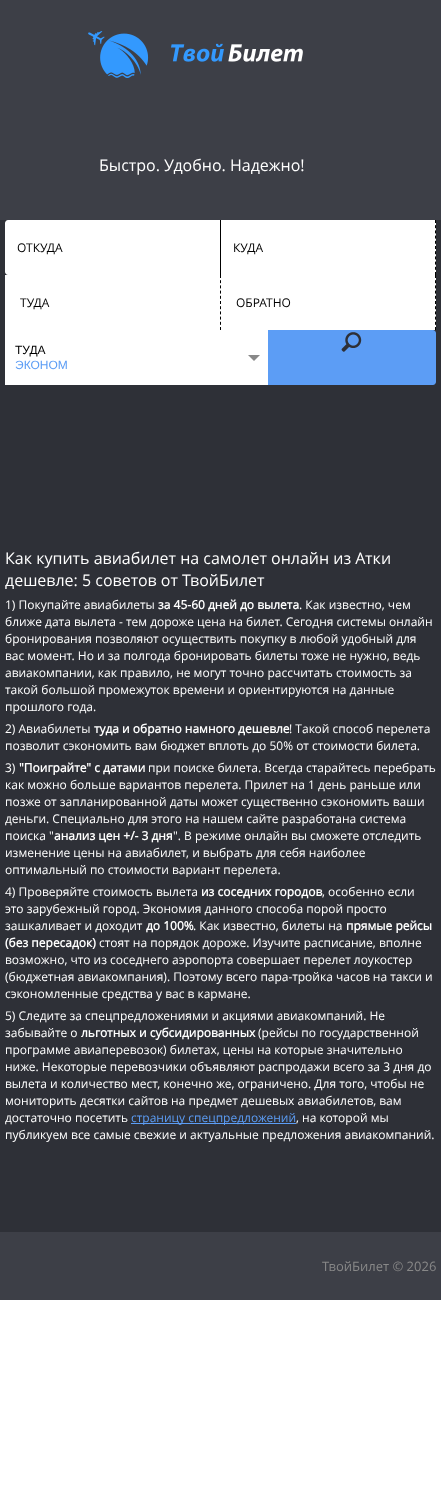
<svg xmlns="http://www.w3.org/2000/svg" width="441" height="1491">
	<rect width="100%" height="100%" fill="#FFFFFF" />
	<rect x="0" y="220" width="441" height="1012" fill="#2E3037" />
	<rect x="0" y="0" width="441" height="220" fill="#3D3F47" />
	<image x="88" y="31" width="215" height="47" href="assets/img1.png" />
	<text x="99" y="171" font-family="Open Sans" font-size="16" fill="#FFFFFF">Быстро. Удобно. Надежно!</text>
	<path d="M8 220H221V275H8C6.5 275 5 273.5 5 272V223C5 221.5 6.5 220 8 220Z" fill="#FFFFFF" />
	<rect x="220" y="220" width="1" height="55" fill="#000000" />
	<text x="17" y="252" font-family="Open Sans" font-size="12" fill="#000000">ОТКУДА</text>
	<rect x="221" y="220" width="215" height="55" fill="#FFFFFF" />
	<path d="M435.5 220V275" fill="none" stroke="#000000" stroke-dasharray="3 2.2" />
	<text x="233" y="252" font-family="Open Sans" font-size="12" fill="#000000">КУДА</text>
	<rect x="5" y="275" width="431" height="55" fill="#FFFFFF" />
	<path d="M220.5 275V330" fill="none" stroke="#000000" stroke-dasharray="3 2.2" />
	<text x="20" y="307" font-family="Open Sans" font-size="12" fill="#000000">ТУДА</text>
	<path d="M435.5 275V330" fill="none" stroke="#000000" stroke-dasharray="3 2.2" />
	<text x="236" y="307" font-family="Open Sans" font-size="12" fill="#000000">ОБРАТНО</text>
	<rect x="5" y="330" width="263" height="55" fill="#FFFFFF" />
	<text x="15" y="354" font-family="Liberation Sans" font-size="12" fill="#000000">ТУДА</text>
	<path d="M248 355H260L254 361Z" fill="#888888" />
	<text x="15" y="369" font-family="Liberation Sans" font-size="12" fill="#5C9DF5">ЭКОНОМ</text>
	<path d="M268 330H433C434.5 330 436 331.5 436 333V382C436 383.5 434.5 385 433 385H268Z" fill="#5C9DF5" />
	<image x="341" y="332" width="21" height="20" href="assets/img2.png" />
	<g font-family="Open Sans" font-size="16" fill="#FFFFFF">
		<text x="5" y="564">Как купить авиабилет на самолет онлайн из Атки</text>
		<text x="5" y="586">дешевле: 5 советов от ТвойБилет</text>
	</g>
	<text x="5" y="609" font-family="Open Sans" font-size="12" fill="#FFFFFF">1) Покупайте авиабилеты</text>
	<text x="158" y="609" font-family="Open Sans" font-size="12" font-weight="700" fill="#FFFFFF">за 45-60 дней до вылета</text>
	<g font-family="Open Sans" font-size="12" fill="#FFFFFF">
		<text x="299" y="609">. Как известно, чем</text>
		<text x="5" y="626">ближе дата вылета - тем дороже цена на билет. Сегодня системы онлайн</text>
		<text x="5" y="643">бронирования позволяют осуществить покупку в любой удобный для</text>
		<text x="5" y="660">вас момент. Но и за полгода бронировать билеты тоже не нужно, ведь</text>
		<text x="5" y="677">авиакомпании, как правило, не могут точно рассчитать стоимость за</text>
		<text x="5" y="694">такой большой промежуток времени и ориентируются на данные</text>
		<text x="5" y="711">прошлого года.</text>
		<text x="5" y="733">2) Авиабилеты</text>
	</g>
	<text x="94" y="733" font-family="Open Sans" font-size="12" font-weight="700" fill="#FFFFFF">туда и обратно намного дешевле</text>
	<g font-family="Open Sans" font-size="12" fill="#FFFFFF">
		<text x="289" y="733">! Такой способ перелета</text>
		<text x="5" y="750">позволит сэкономить вам бюджет вплоть до 50% от стоимости билета.</text>
		<text x="5" y="772">3)</text>
	</g>
	<text x="19" y="772" font-family="Open Sans" font-size="12" font-weight="700" fill="#FFFFFF">"Поиграйте" с датами</text>
	<g font-family="Open Sans" font-size="12" fill="#FFFFFF">
		<text x="148" y="772">при поиске билета. Всегда старайтесь перебрать</text>
		<text x="5" y="789">как можно больше вариантов перелета. Прилет на 1 день раньше или</text>
		<text x="5" y="806">позже от запланированной даты может существенно сэкономить ваши</text>
		<text x="5" y="823">деньги. Специально для этого на нашем сайте разработана система</text>
		<text x="5" y="840">поиска "</text>
	</g>
	<text x="54" y="840" font-family="Open Sans" font-size="12" font-weight="700" fill="#FFFFFF">анализ цен +/- 3 дня</text>
	<g font-family="Open Sans" font-size="12" fill="#FFFFFF">
		<text x="173" y="840">". В режиме онлайн вы сможете отследить</text>
		<text x="5" y="857">изменение цены на авиабилет, и выбрать для себя наиболее</text>
		<text x="5" y="874">оптимальный по стоимости вариант перелета.</text>
		<text x="5" y="896">4) Проверяйте стоимость вылета</text>
	</g>
	<text x="201" y="896" font-family="Open Sans" font-size="12" font-weight="700" fill="#FFFFFF">из соседних городов</text>
	<g font-family="Open Sans" font-size="12" fill="#FFFFFF">
		<text x="322" y="896">, особенно если</text>
		<text x="5" y="913">это зарубежный город. Экономия данного способа порой просто</text>
		<text x="5" y="930">зашкаливает и доходит</text>
	</g>
	<text x="146" y="930" font-family="Open Sans" font-size="12" font-weight="700" fill="#FFFFFF">до 100%</text>
	<text x="193" y="930" font-family="Open Sans" font-size="12" fill="#FFFFFF">. Как известно, билеты на</text>
	<g font-family="Open Sans" font-size="12" font-weight="700" fill="#FFFFFF">
		<text x="346" y="930">прямые рейсы</text>
		<text x="5" y="947">(без пересадок)</text>
	</g>
	<g font-family="Open Sans" font-size="12" fill="#FFFFFF">
		<text x="99" y="947">стоят на порядок дороже. Изучите расписание, вполне</text>
		<text x="5" y="964">возможно, что из соседнего аэропорта совершает перелет лоукостер</text>
		<text x="5" y="981">(бюджетная авиакомпания). Поэтому всего пара-тройка часов на такси и</text>
		<text x="5" y="998">сэкономленные средства у вас в кармане.</text>
		<text x="5" y="1020">5) Следите за спецпредложениями и акциями авиакомпаний. Не</text>
		<text x="5" y="1037">забывайте о</text>
	</g>
	<text x="81" y="1037" font-family="Open Sans" font-size="12" font-weight="700" fill="#FFFFFF">льготных и субсидированных</text>
	<g font-family="Open Sans" font-size="12" fill="#FFFFFF">
		<text x="258" y="1037">(рейсы по государственной</text>
		<text x="5" y="1054">программе авиаперевозок) билетах, цены на которые значительно</text>
		<text x="5" y="1071">ниже. Некоторые перевозчики объявляют распродажи всего за 3 дня до</text>
		<text x="5" y="1088">вылета и количество мест, конечно же, ограничено. Для того, чтобы не</text>
		<text x="5" y="1105">мониторить десятки сайтов на предмет дешевых авиабилетов, вам</text>
		<text x="5" y="1122">достаточно посетить</text>
	</g>
	<rect x="131" y="1123" width="165" height="1" fill="#5C9DF5" />
	<text x="131" y="1122" font-family="Open Sans" font-size="12" fill="#5C9DF5">страницу спецпредложений</text>
	<g font-family="Open Sans" font-size="12" fill="#FFFFFF">
		<text x="296" y="1122">, на которой мы</text>
		<text x="5" y="1139">публикуем все самые свежие и актуальные предложения авиакомпаний.</text>
	</g>
	<rect x="0" y="1232" width="441" height="68" fill="#3D3F47" />
	<text x="322" y="1271" font-family="Open Sans" font-size="13" fill="#888888">ТвойБилет © 2026</text>
</svg>
